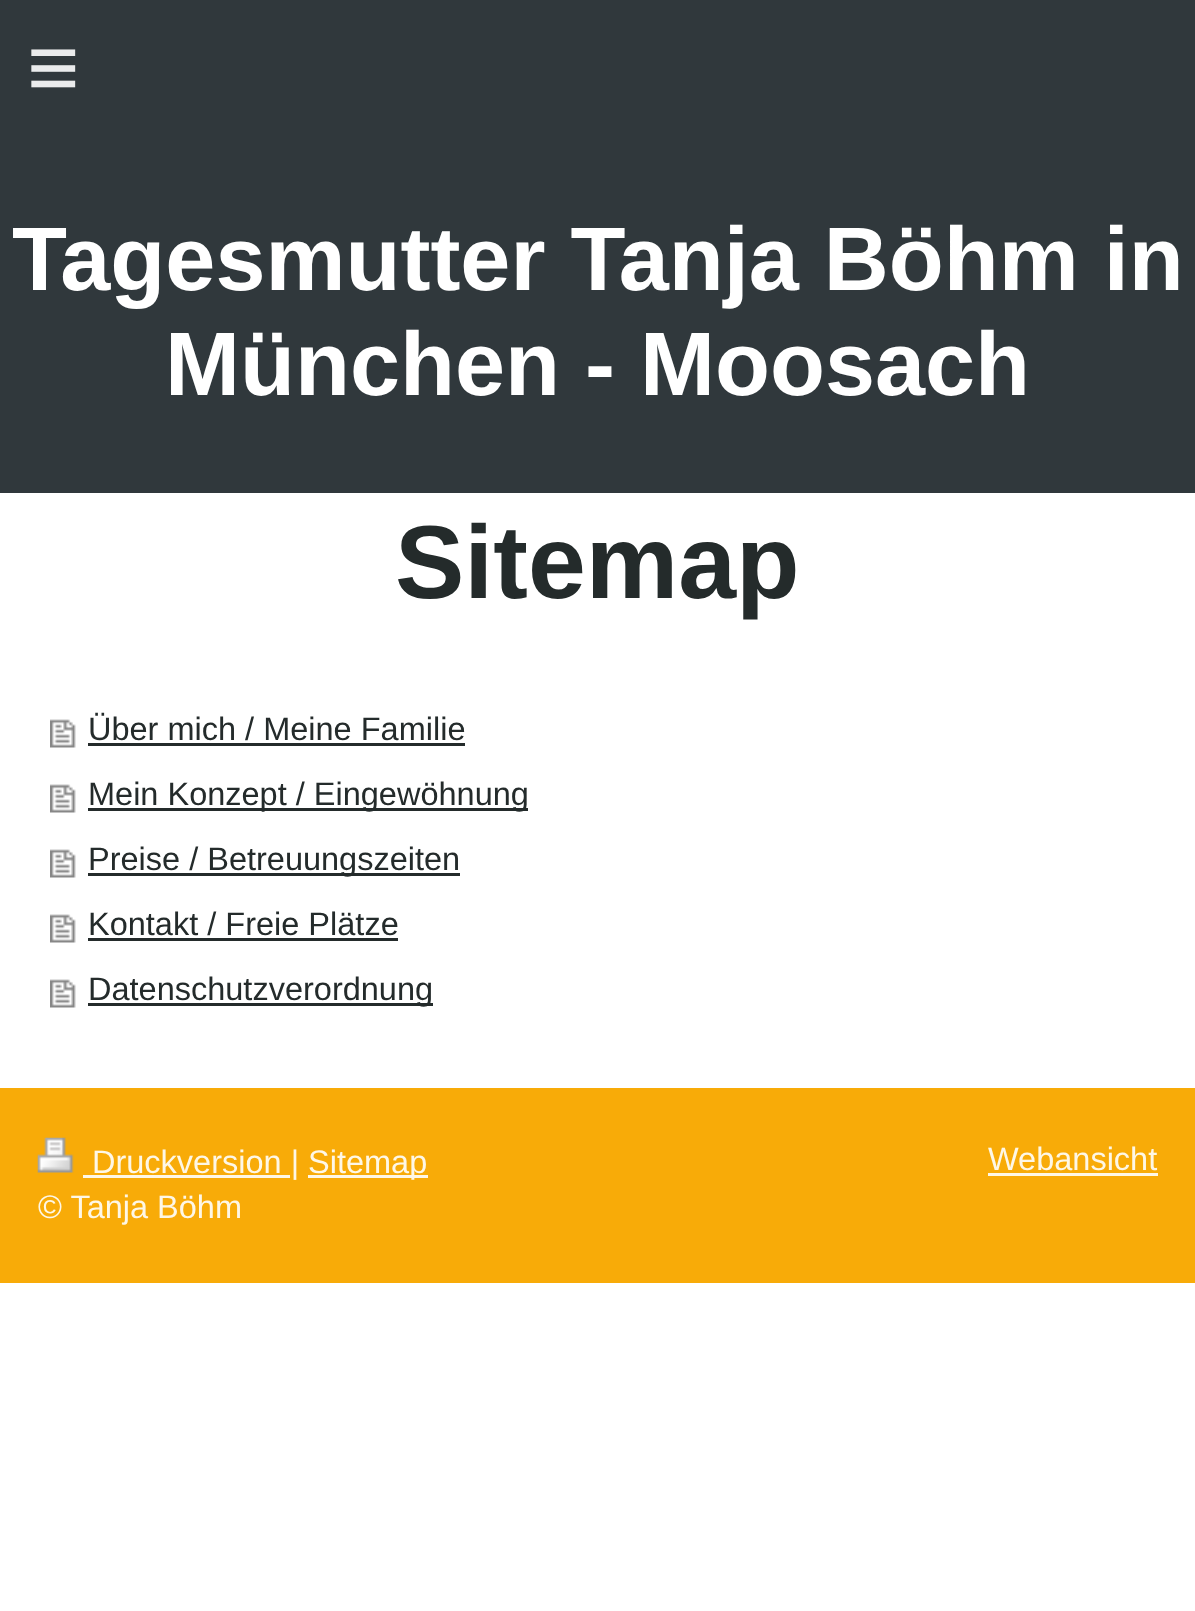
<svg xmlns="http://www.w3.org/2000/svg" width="1195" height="1611">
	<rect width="100%" height="100%" fill="#FFFFFF" />
	<rect x="0" y="0" width="1195" height="493" fill="#30383C" />
	<text x="27" y="98" font-family="Liberation Sans" font-size="90" letter-spacing="26" fill="#EAEBEC">≡</text>
	<g font-family="Liberation Sans" font-size="90" font-weight="700" fill="#FFFFFF">
		<text x="12" y="290">Tagesmutter Tanja Böhm in</text>
		<text x="165" y="395">München - Moosach</text>
	</g>
	<text x="395" y="598" font-family="Liberation Sans" font-size="104" font-weight="700" fill="#242B2B">Sitemap</text>
	<image x="50" y="719" width="26" height="29" href="assets/img1.png" />
	<text x="88" y="740" font-family="Liberation Sans" font-size="32.5" fill="#242B2B">Über mich / Meine Familie</text>
	<rect x="88" y="743" width="377" height="3" fill="#242B2B" />
	<image x="50" y="784" width="26" height="29" href="assets/img2.png" />
	<rect x="88" y="808" width="440" height="3" fill="#242B2B" />
	<text x="88" y="805" font-family="Liberation Sans" font-size="32.5" fill="#242B2B">Mein Konzept / Eingewöhnung</text>
	<image x="50" y="849" width="26" height="29" href="assets/img1.png" />
	<rect x="88" y="873" width="372" height="3" fill="#242B2B" />
	<text x="88" y="870" font-family="Liberation Sans" font-size="32.5" fill="#242B2B">Preise / Betreuungszeiten</text>
	<image x="50" y="914" width="26" height="29" href="assets/img1.png" />
	<text x="88" y="935" font-family="Liberation Sans" font-size="32.5" fill="#242B2B">Kontakt / Freie Plätze</text>
	<rect x="88" y="938" width="310" height="3" fill="#242B2B" />
	<image x="50" y="979" width="26" height="29" href="assets/img1.png" />
	<rect x="88" y="1003" width="345" height="3" fill="#242B2B" />
	<text x="88" y="1000" font-family="Liberation Sans" font-size="32.5" fill="#242B2B">Datenschutzverordnung</text>
	<rect x="0" y="1088" width="1195" height="195" fill="#F8AB08" />
	<image x="37" y="1137" width="37" height="36" href="assets/img3.png" />
	<rect x="83" y="1175" width="207" height="3" fill="#FEF7E6" />
	<text x="92" y="1173" font-family="Liberation Sans" font-size="32.5" fill="#FEF7E6">Druckversion |</text>
	<rect x="308" y="1175" width="120" height="3" fill="#FEF7E6" />
	<g font-family="Liberation Sans" font-size="32.5" fill="#FEF7E6">
		<text x="308" y="1173">Sitemap</text>
		<text x="38" y="1218">© Tanja Böhm</text>
		<text x="988" y="1170">Webansicht</text>
	</g>
	<rect x="988" y="1173" width="170" height="3" fill="#FEF7E6" />
</svg>
